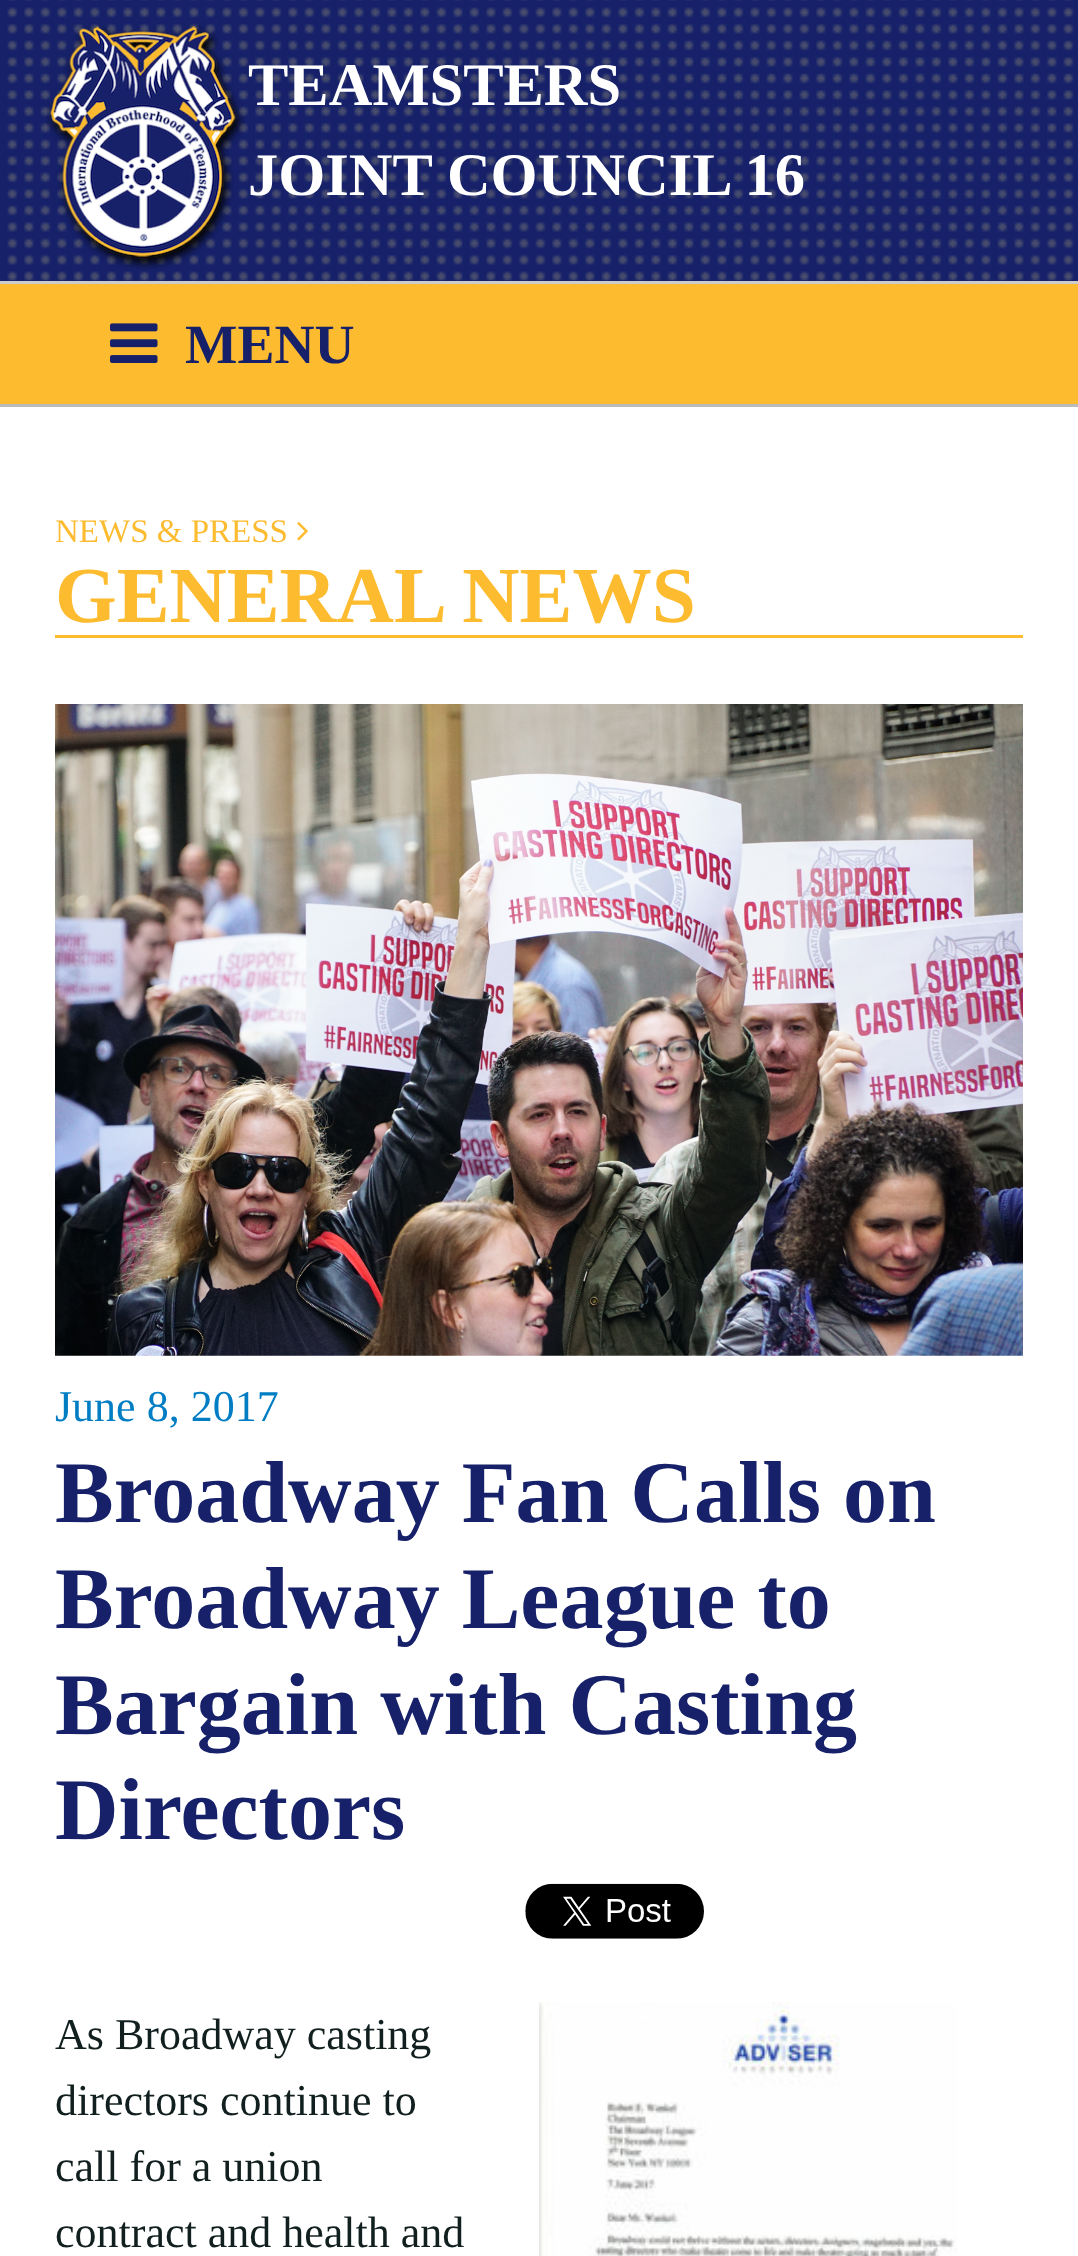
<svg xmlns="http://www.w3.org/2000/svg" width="1078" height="2256">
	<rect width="100%" height="100%" fill="#FFFFFF" />
	<rect x="0" y="0" width="1078" height="281" fill="#16216A" />
	<image x="7" y="0" width="1067" height="281" href="assets/img2.png" />
	<image x="46" y="25" width="199" height="245" href="assets/img1.png" />
	<g font-family="Liberation Serif" font-size="60.5" font-weight="700" fill="#FFFFFF">
		<text x="248" y="105">TEAMSTERS</text>
		<text x="248" y="195">JOINT COUNCIL 16</text>
	</g>
	<rect x="0" y="284" width="1078" height="120" fill="#FDBB30" />
	<rect x="0" y="281" width="1078" height="3" fill="#CCCCCC" />
	<rect x="0" y="404" width="1078" height="3" fill="#BBBBBB" />
	<image x="110" y="323" width="48" height="40" href="assets/img3.png" />
	<text x="185" y="363" font-family="Liberation Serif" font-size="55.5" font-weight="700" fill="#16216A">MENU</text>
	<text x="55" y="542" font-family="Liberation Serif" font-size="33" fill="#FDBB30">NEWS &amp; PRESS</text>
	<image x="297" y="522" width="11" height="19" href="assets/img4.png" />
	<rect x="55" y="635" width="968" height="3" fill="#FDBB30" />
	<text x="55" y="622" font-family="Liberation Serif" font-size="79.25" font-weight="700" fill="#FDBB30">GENERAL NEWS</text>
	<image x="55" y="704" width="968" height="652" href="assets/img5.png" />
	<text x="55" y="1421" font-family="Liberation Serif" font-size="44" fill="#007DC3">June 8, 2017</text>
	<g font-family="Liberation Serif" font-size="88" font-weight="700" fill="#16216A">
		<text x="55" y="1522">Broadway Fan Calls on</text>
		<text x="55" y="1628">Broadway League to</text>
		<text x="55" y="1734">Bargain with Casting</text>
		<text x="55" y="1839">Directors</text>
	</g>
	<image x="525" y="1883" width="179" height="56" href="assets/img6.png" />
	<text x="55" y="2049" font-family="Liberation Serif" font-size="44" fill="#121F1F">As Broadway casting</text>
	<image x="539" y="2002" width="418" height="254" href="assets/img7.png" />
	<g font-family="Liberation Serif" font-size="44" fill="#121F1F">
		<text x="55" y="2115">directors continue to</text>
		<text x="55" y="2181">call for a union</text>
		<text x="55" y="2247">contract and health and</text>
	</g>
</svg>
